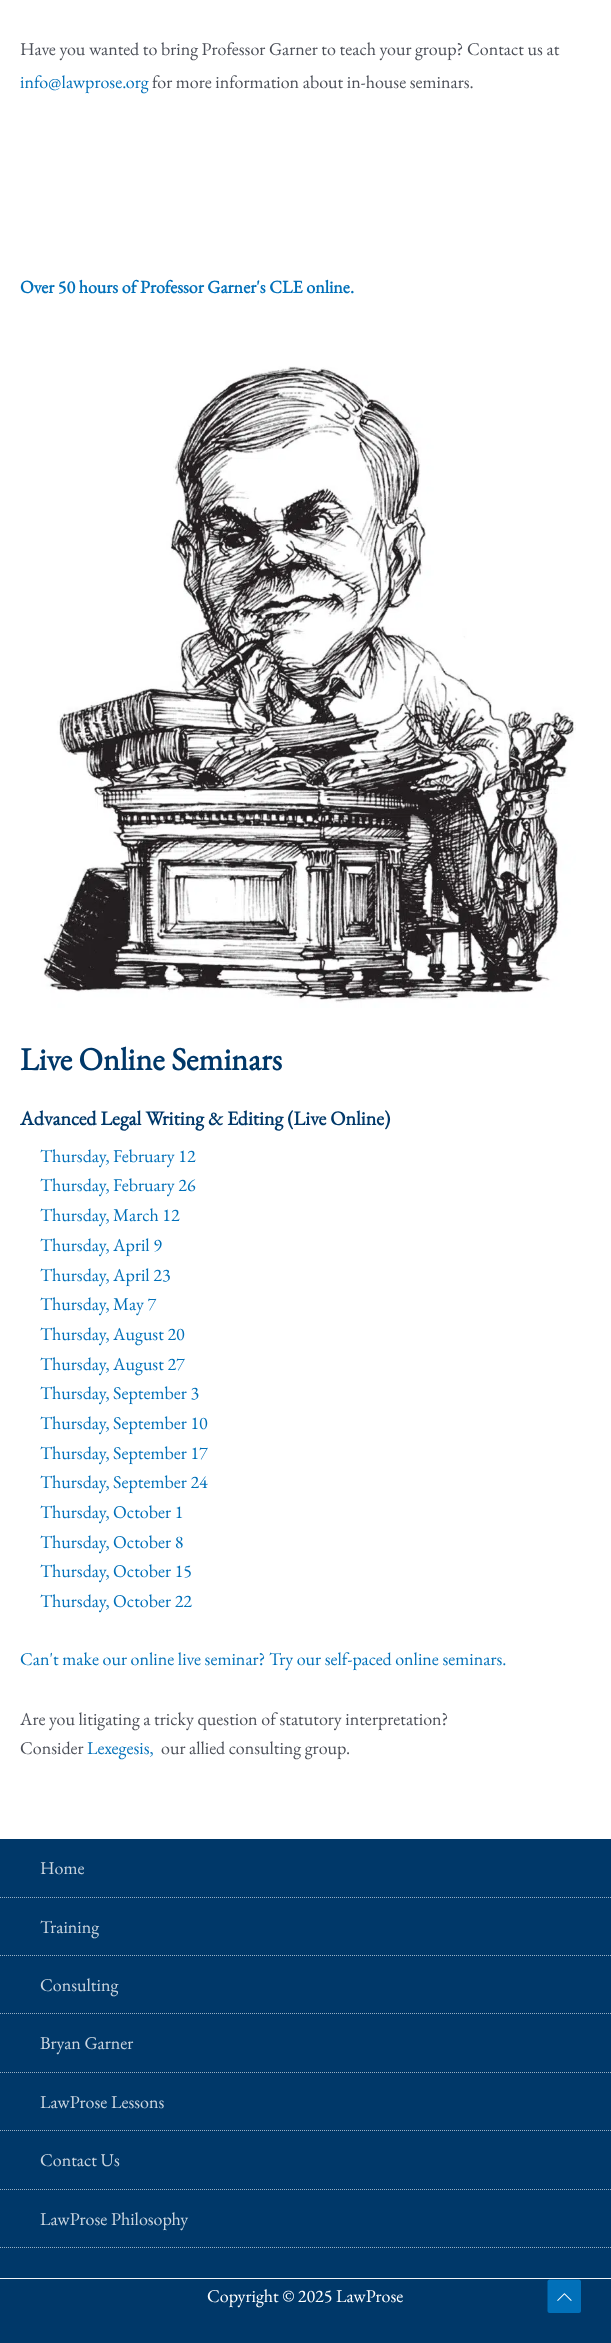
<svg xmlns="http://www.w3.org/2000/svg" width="611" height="2343">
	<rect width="100%" height="100%" fill="#FFFFFF" />
	<text x="20" y="55" font-family="EB Garamond" font-size="18" fill="#4B4F58">Have you wanted to bring Professor Garner to teach your group? Contact us at</text>
	<text x="20" y="88" font-family="EB Garamond" font-size="18" fill="#0170B9">info@lawprose.org</text>
	<text x="152" y="88" font-family="EB Garamond" font-size="18" fill="#4B4F58">for more information about in-house seminars.</text>
	<text x="20" y="293" font-family="EB Garamond" font-size="18" font-weight="700" fill="#0170B9">Over 50 hours of Professor Garner's CLE online.</text>
	<image x="41" y="366" width="535" height="642" href="assets/img1.png" />
	<text x="20" y="1070" font-family="EB Garamond" font-size="32" font-weight="700" fill="#003869">Live Online Seminars</text>
	<text x="20" y="1125" font-family="EB Garamond" font-size="20" font-weight="700" fill="#003869">Advanced Legal Writing &amp; Editing (Live Online)</text>
	<g font-family="EB Garamond" font-size="18" fill="#0170B9">
		<text x="40" y="1162">Thursday, February 12</text>
		<text x="40" y="1191">Thursday, February 26</text>
		<text x="40" y="1221">Thursday, March 12</text>
		<text x="40" y="1251">Thursday, April 9</text>
		<text x="40" y="1281">Thursday, April 23</text>
		<text x="40" y="1310">Thursday, May 7</text>
		<text x="40" y="1340">Thursday, August 20</text>
		<text x="40" y="1370">Thursday, August 27</text>
		<text x="40" y="1399">Thursday, September 3</text>
		<text x="40" y="1429">Thursday, September 10</text>
		<text x="40" y="1459">Thursday, September 17</text>
		<text x="40" y="1488">Thursday, September 24</text>
		<text x="40" y="1518">Thursday, October 1</text>
		<text x="40" y="1548">Thursday, October 8</text>
		<text x="40" y="1577">Thursday, October 15</text>
		<text x="40" y="1607">Thursday, October 22</text>
		<text x="20" y="1665">Can't make our online live seminar? Try our self-paced online seminars.</text>
	</g>
	<g font-family="EB Garamond" font-size="18" fill="#4B4F58">
		<text x="20" y="1725">Are you litigating a tricky question of statutory interpretation?</text>
		<text x="20" y="1754">Consider</text>
	</g>
	<text x="87" y="1754" font-family="EB Garamond" font-size="18" fill="#0170B9">Lexegesis,</text>
	<text x="161" y="1754" font-family="EB Garamond" font-size="18" fill="#4B4F58">our allied consulting group.</text>
	<rect x="0" y="1839" width="611" height="439" fill="#003869" />
	<path d="M0 1897.5H611" fill="none" stroke="#99AFC3" stroke-dasharray="1 1" />
	<text x="40" y="1874" font-family="EB Garamond" font-size="18" fill="#CCD7E1">Home</text>
	<path d="M0 1955.5H611" fill="none" stroke="#99AFC3" stroke-dasharray="1 1" />
	<text x="40" y="1933" font-family="EB Garamond" font-size="18" fill="#CCD7E1">Training</text>
	<path d="M0 2013.5H611" fill="none" stroke="#99AFC3" stroke-dasharray="1 1" />
	<text x="40" y="1991" font-family="EB Garamond" font-size="18" fill="#CCD7E1">Consulting</text>
	<path d="M0 2072.5H611" fill="none" stroke="#99AFC3" stroke-dasharray="1 1" />
	<text x="40" y="2049" font-family="EB Garamond" font-size="18" fill="#CCD7E1">Bryan Garner</text>
	<path d="M0 2130.5H611" fill="none" stroke="#99AFC3" stroke-dasharray="1 1" />
	<text x="40" y="2108" font-family="EB Garamond" font-size="18" fill="#CCD7E1">LawProse Lessons</text>
	<path d="M0 2189.5H611" fill="none" stroke="#99AFC3" stroke-dasharray="1 1" />
	<text x="40" y="2166" font-family="EB Garamond" font-size="18" fill="#CCD7E1">Contact Us</text>
	<path d="M0 2247.5H611" fill="none" stroke="#99AFC3" stroke-dasharray="1 1" />
	<text x="40" y="2225" font-family="EB Garamond" font-size="18" fill="#CCD7E1">LawProse Philosophy</text>
	<rect x="0" y="2279" width="611" height="64" fill="#003869" />
	<rect x="0" y="2278" width="611" height="1" fill="#F2F5F7" />
	<text x="207" y="2302" font-family="EB Garamond" font-size="18" fill="#FFFFFF">Copyright © 2025 LawProse</text>
	<path d="M579 2313H549.5C548.5 2313 547.5 2312 547.5 2311V2281.5C547.5 2280.5 548.5 2279.5 549.5 2279.5H579C580 2279.5 581 2280.5 581 2281.5V2311C581 2312 580 2313 579 2313Z" fill="#0170B9" />
	<image x="557" y="2293" width="15" height="8" href="assets/img2.png" />
</svg>
